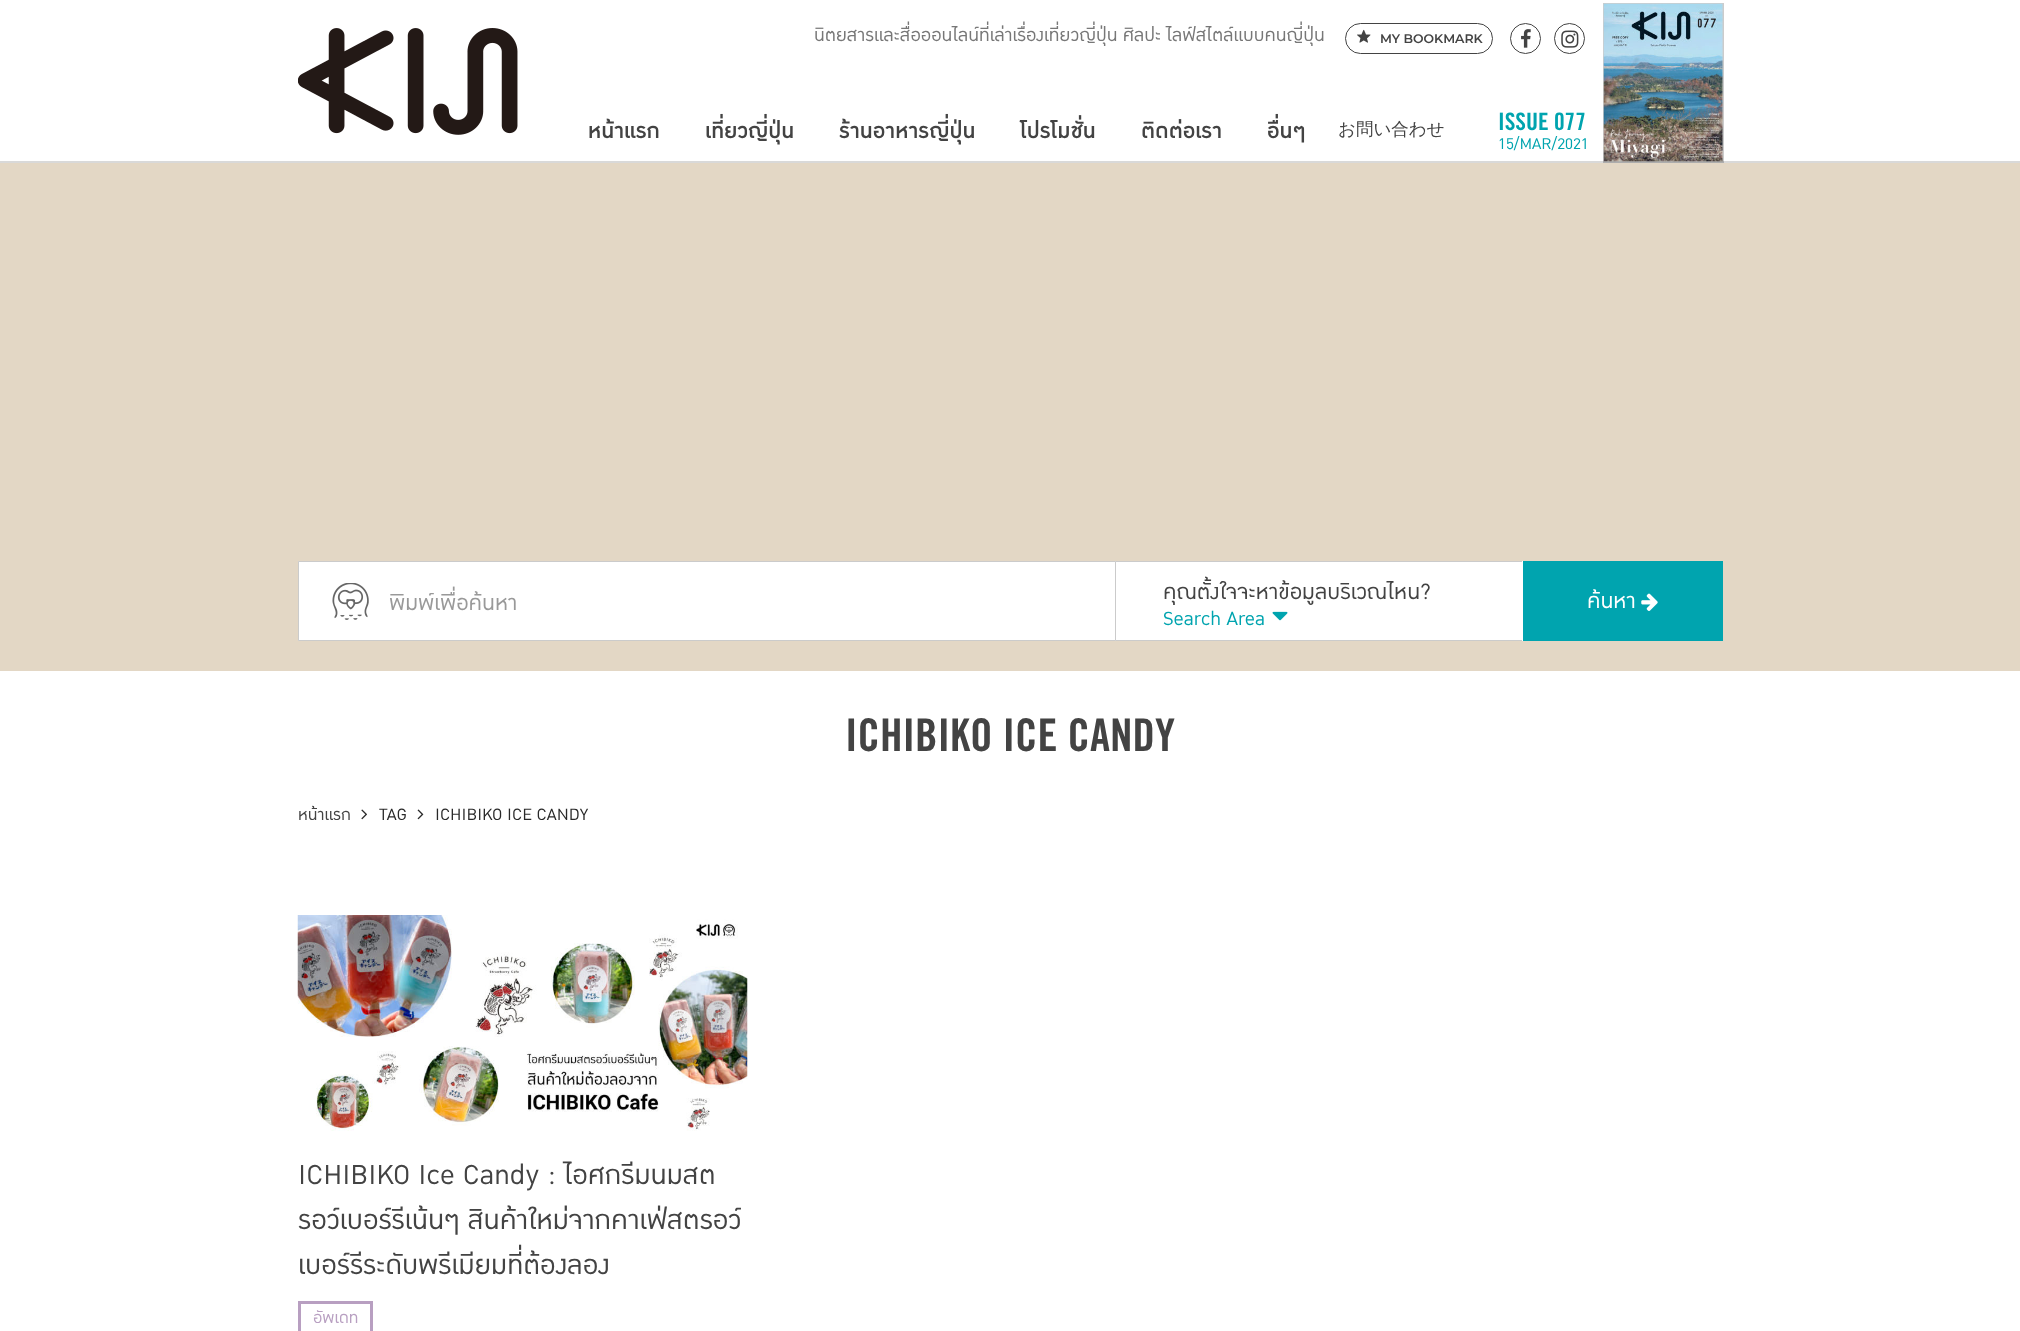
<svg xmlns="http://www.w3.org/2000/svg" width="2020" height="1331">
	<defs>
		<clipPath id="clip1"><rect x="389" y="586" width="676" height="34" /></clipPath>
	</defs>
	<rect width="100%" height="100%" fill="#FFFFFF" />
	<image x="298" y="28" width="220" height="107" href="assets/img1.png" />
	<text x="814" y="41" font-family="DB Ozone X" font-size="25" fill="#777777">นิตยสารและสื่อออนไลน์ที่เล่าเรื่องเที่ยวญี่ปุ่น ศิลปะ ไลฟ์สไตล์แบบคนญี่ปุ่น</text>
	<rect x="1345.5" y="23.5" width="147" height="30" rx="15" fill="none" stroke="#434343" />
	<image x="1357" y="29" width="14" height="14" href="assets/img2.png" />
	<text x="1380" y="43" font-family="Montserrat" font-size="12.5" font-weight="100" fill="#434343">MY BOOKMARK</text>
	<circle cx="1525.5" cy="38.5" r="15" fill="none" stroke="#434343" />
	<image x="1521" y="29" width="10" height="19" href="assets/img3.png" />
	<circle cx="1569.5" cy="38.5" r="15" fill="none" stroke="#434343" />
	<image x="1561" y="30" width="18" height="18" href="assets/img4.png" />
	<rect x="0" y="161" width="2020" height="2" fill="#D9D9D9" />
	<g font-family="DB Ozone X" font-size="30" font-weight="500" fill="#434343">
		<text x="588" y="138">หน้าแรก</text>
		<text x="705" y="138">เที่ยวญี่ปุ่น</text>
		<text x="839" y="138">ร้านอาหารญี่ปุ่น</text>
		<text x="1020" y="138">โปรโมชั่น</text>
		<text x="1141" y="138">ติดต่อเรา</text>
		<text x="1267" y="138">อื่นๆ</text>
	</g>
	<text x="1338" y="135" font-family="WenQuanYi Zen Hei" font-size="17.5" font-weight="500" fill="#434343">お問い合わせ</text>
	<text x="1498" y="130" font-family="'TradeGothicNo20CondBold'" font-size="24" font-weight="700" fill="#00A4AF">ISSUE 077</text>
	<text x="1498" y="149" font-family="DB Ozone X" font-size="21.25" fill="#00A4AF">15/MAR/2021</text>
	<rect x="0" y="163" width="2020" height="508" fill="#E3D7C5" />
	<rect x="1603" y="3" width="121" height="160" fill="#000000" fill-opacity="0.2" filter="blur(0.5px)" />
	<image x="1603" y="3" width="120" height="159" href="assets/img5.png" />
	<rect x="298" y="561" width="1225" height="80" fill="#FFFFFF" />
	<image x="332" y="583" width="37" height="37" href="assets/img6.png" />
	<path d="M298 561H1115V562H299Z" fill="#CBCBCB" />
	<path d="M1115 641H298L299 640H1115Z" fill="#CBCBCB" />
	<path d="M298 641V561L299 562V640Z" fill="#979797" fill-opacity="0.5" />
	<g clip-path="url(#clip1)">
		<text x="389" y="610" font-family="DB Ozone X" font-size="30" fill="#999999">พิมพ์เพื่อค้นหา</text>
	</g>
	<path d="M1115 561H1522V562H1116Z" fill="#CBCBCB" />
	<path d="M1522 641H1115L1116 640H1522Z" fill="#CBCBCB" />
	<path d="M1115 641V561L1116 562V640Z" fill="#979797" fill-opacity="0.5" />
	<text x="1163" y="599" font-family="DB Ozone X" font-size="30" fill="#434343">คุณตั้งใจจะหาข้อมูลบริเวณไหน?</text>
	<text x="1163" y="625" font-family="DB Ozone X" font-size="26" fill="#00A4AF">Search Area</text>
	<image x="1272" y="611" width="16" height="10" href="assets/img7.png" />
	<rect x="1523" y="561" width="200" height="80" fill="#00A4AF" />
	<text x="1587" y="608" font-family="DB Ozone X" font-size="30" fill="#FFFFFF">ค้นหา</text>
	<image x="1641" y="593" width="17" height="18" href="assets/img8.png" />
	<text x="845" y="751" font-family="'TradeGothicNo20CondBold'" font-size="45" font-weight="700" fill="#434343">ICHIBIKO ICE CANDY</text>
	<text x="298" y="820" font-family="DB Ozone X" font-size="22.5" fill="#434343">หน้าแรก</text>
	<image x="361" y="809" width="6" height="11" href="assets/img9.png" />
	<text x="379" y="820" font-family="DB Ozone X" font-size="22.5" fill="#292929">TAG</text>
	<image x="417" y="809" width="7" height="11" href="assets/img10.png" />
	<text x="435" y="820" font-family="DB Ozone X" font-size="22.5" fill="#292929">ICHIBIKO ICE CANDY</text>
	<image x="297" y="915" width="451" height="216" href="assets/img11.png" />
	<g font-family="DB Ozone X" font-size="37.5" fill="#434343">
		<text x="298" y="1184">ICHIBIKO Ice Candy : ไอศกรีมนมสต</text>
		<text x="298" y="1229">รอว์เบอร์รีเน้นๆ สินค้าใหม่จากคาเฟ่สตรอว์</text>
		<text x="298" y="1274">เบอร์รีระดับพรีเมียมที่ต้องลอง</text>
	</g>
	<rect x="299.5" y="1302.5" width="72" height="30" fill="none" stroke="#B89FC1" stroke-width="3" />
	<text x="313" y="1323" font-family="DB Ozone X" font-size="22.5" fill="#B89FC1">อัพเดท</text>
</svg>
